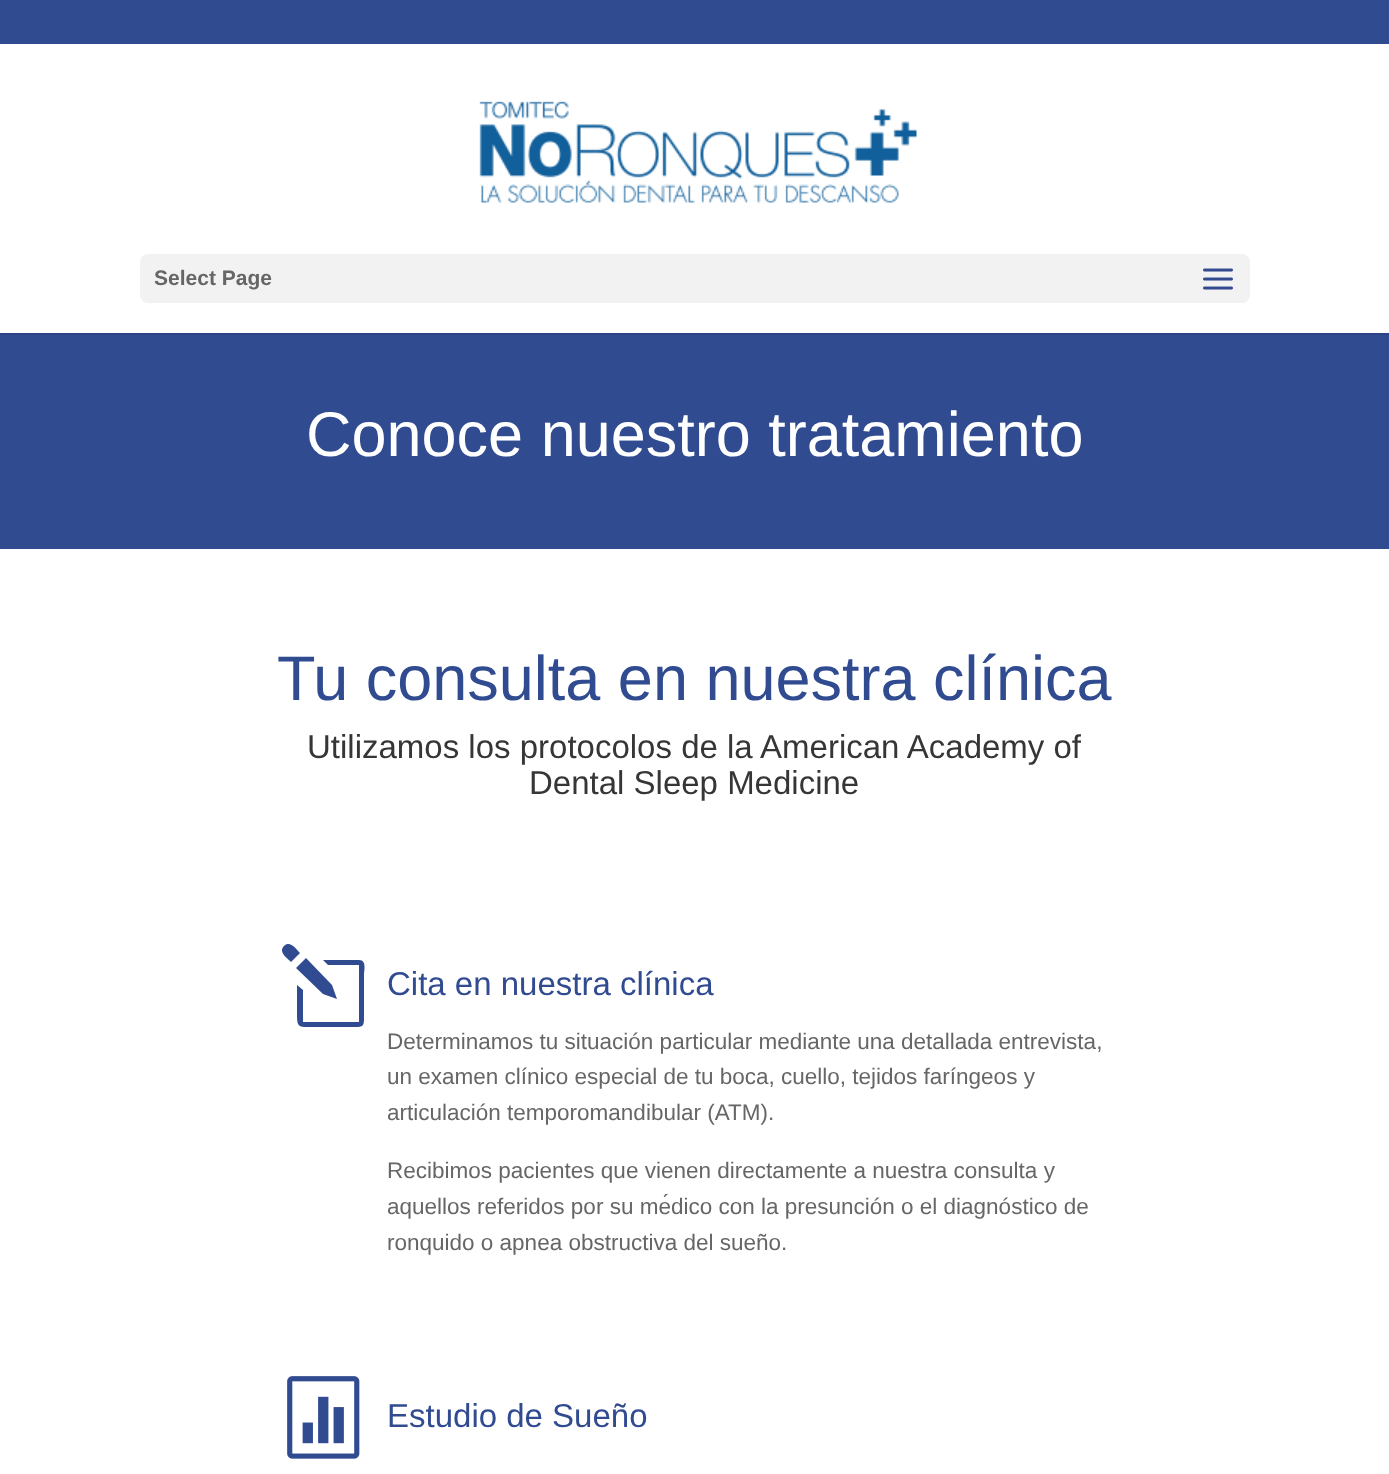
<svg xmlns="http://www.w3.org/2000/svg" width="1389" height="1474">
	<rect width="100%" height="100%" fill="#FFFFFF" />
	<rect x="0" y="0" width="1389" height="44" fill="#314B91" />
	<rect x="0" y="333" width="1389" height="2" fill="#2C4483" />
	<image x="479" y="101" width="438" height="102" href="assets/img1.png" />
	<rect x="140" y="254" width="1110" height="49" rx="8" fill="#F2F2F2" />
	<text x="154" y="285" font-family="Liberation Sans" font-size="21" font-weight="700" fill="#666666">Select Page</text>
	<image x="1203" y="268" width="30" height="22" href="assets/img2.png" />
	<rect x="0" y="335" width="1389" height="214" fill="#314B91" />
	<text x="306" y="456" font-family="Liberation Sans" font-size="63" fill="#FFFFFF">Conoce nuestro tratamiento</text>
	<text x="277" y="700" font-family="Liberation Sans" font-size="63" fill="#314B91">Tu consulta en nuestra clínica</text>
	<g font-family="Liberation Sans" font-size="33" fill="#363636">
		<text x="307" y="758">Utilizamos los protocolos de la American Academy of</text>
		<text x="529" y="794">Dental Sleep Medicine</text>
	</g>
	<path d="M337 999L332 985L306 958L296 968L323 994ZM284 946C278 952 287 958 291 962L300 953C296 949 290 940 284 946ZM359 960H323L328 965H359V1022H303V990L297 985V1015C297 1028 299 1027 312 1027H350C365 1027 364 1028 364 1012V974C364 971 367 960 359 960Z" fill="#314B91" />
	<text x="387" y="995" font-family="Liberation Sans" font-size="33" fill="#314B91">Cita en nuestra clínica</text>
	<g font-family="Liberation Sans" font-size="22.5" fill="#666666">
		<text x="387" y="1049">Determinamos tu situación particular mediante una detallada entrevista,</text>
		<text x="387" y="1084">un examen clínico especial de tu boca, cuello, tejidos faríngeos y</text>
		<text x="387" y="1120">articulación temporomandibular (ATM).</text>
		<text x="387" y="1178">Recibimos pacientes que vienen directamente a nuestra consulta y</text>
		<text x="387" y="1214">aquellos referidos por su médico con la presunción o el diagnóstico de</text>
		<text x="387" y="1250">ronquido o apnea obstructiva del sueño.</text>
	</g>
	<image x="287" y="1376" width="73" height="83" href="assets/img3.png" />
	<text x="387" y="1427" font-family="Liberation Sans" font-size="33" fill="#314B91">Estudio de Sueño</text>
</svg>
